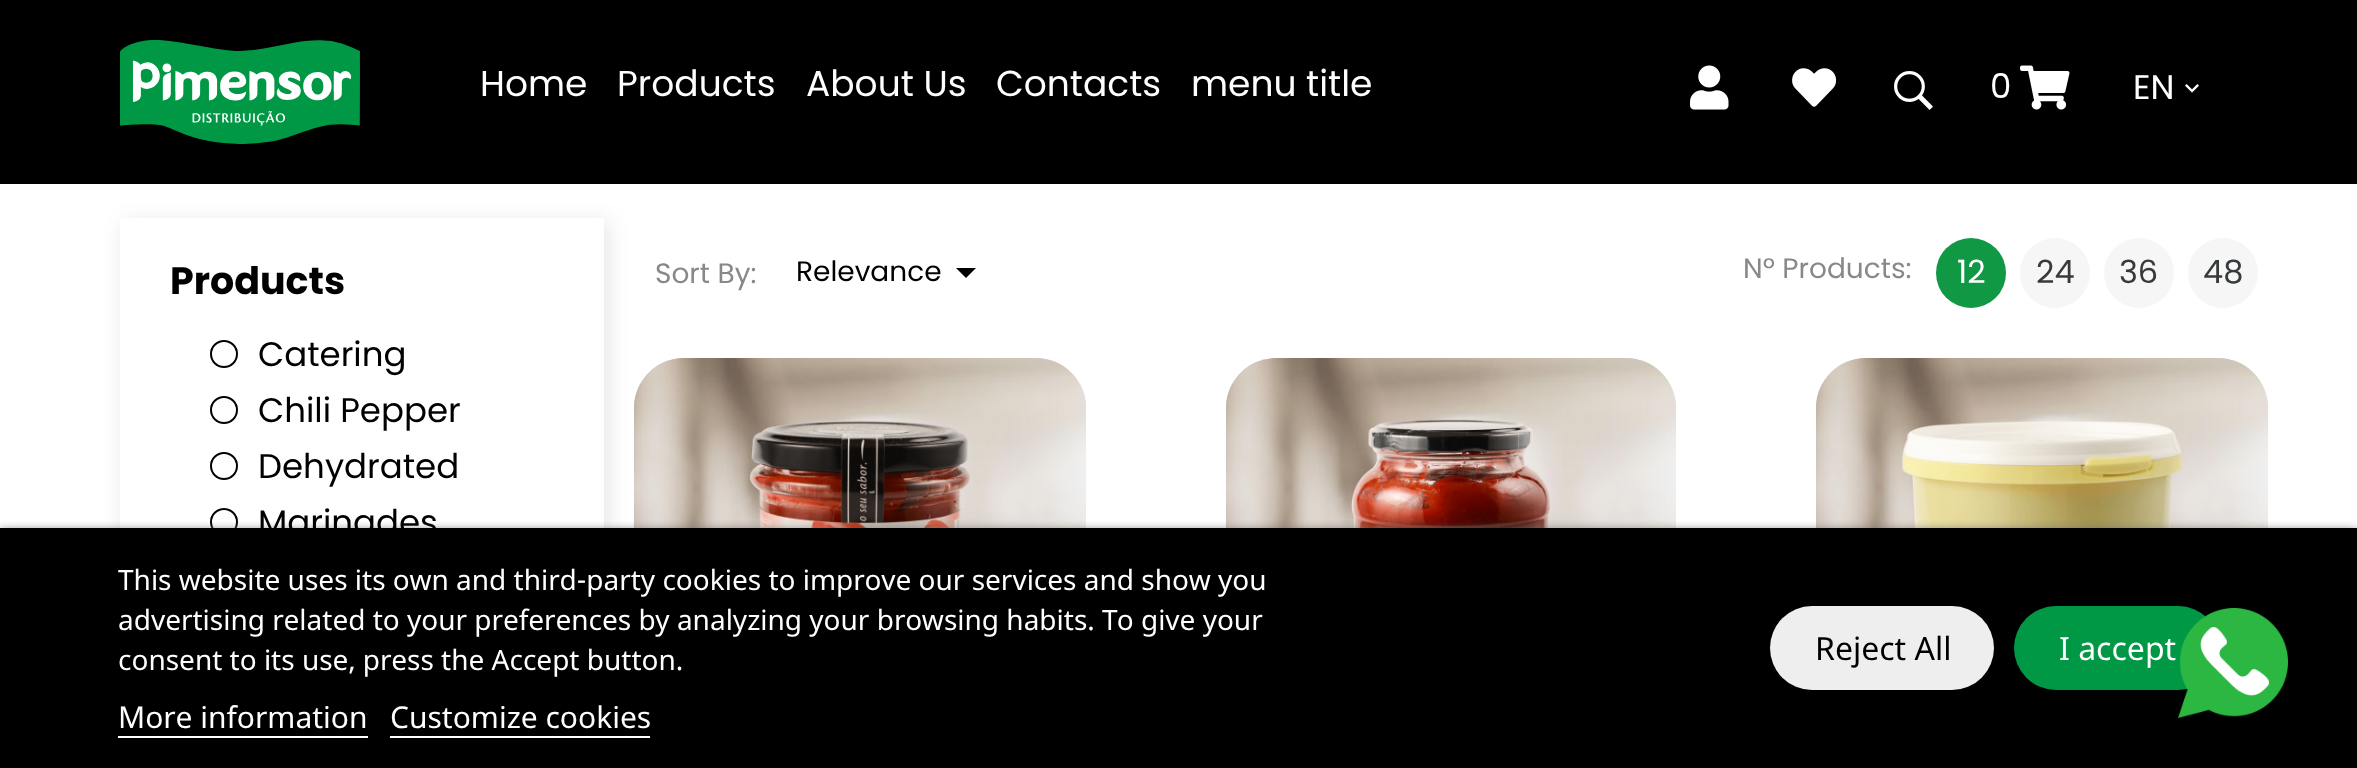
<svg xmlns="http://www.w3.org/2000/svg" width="2357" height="768">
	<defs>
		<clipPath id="clip1"><path d="M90 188H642V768H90ZM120 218H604V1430H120Z" clip-rule="evenodd" /></clipPath>
	</defs>
	<rect width="100%" height="100%" fill="#FFFFFF" />
	<rect x="0" y="0" width="2357" height="184" fill="#000000" />
	<image x="120" y="40" width="240" height="104" href="assets/img1.png" />
	<g font-family="Poppins" font-size="36" fill="#FFFFFF">
		<text x="480" y="96">Home</text>
		<text x="617" y="96">Products</text>
		<text x="806" y="96">About Us</text>
		<text x="996" y="96">Contacts</text>
		<text x="1191" y="96">menu title</text>
	</g>
	<image x="1690" y="65" width="39" height="45" href="assets/img2.png" />
	<image x="1792" y="68" width="45" height="39" href="assets/img3.png" />
	<image x="1894" y="71" width="39" height="39" href="assets/img4.png" />
	<text x="1990" y="98" font-family="Poppins" font-size="34" fill="#FFFFFF">0</text>
	<image x="2020" y="65" width="50" height="45" href="assets/img5.png" />
	<text x="2133" y="99" font-family="Poppins" font-size="34" fill="#FFFFFF">EN</text>
	<image x="2185" y="84" width="14" height="9" href="assets/img6.png" />
	<g clip-path="url(#clip1)">
		<rect x="124" y="222" width="484" height="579" fill="#000000" fill-opacity="0.1" filter="blur(11px)" />
	</g>
	<circle cx="224" cy="522" r="13" fill="none" stroke="#000000" stroke-width="2" />
	<rect x="634" y="358" width="452" height="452" rx="50" fill="#DBDBDB" />
	<image x="634" y="358" width="452" height="170" href="assets/img8.png" />
	<image x="749" y="420" width="221" height="108" href="assets/img9.png" />
	<rect x="1226" y="358" width="450" height="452" rx="50" fill="#DBDBDB" />
	<image x="1226" y="358" width="450" height="170" href="assets/img10.png" />
	<image x="1351" y="419" width="199" height="109" href="assets/img11.png" />
	<rect x="1816" y="358" width="452" height="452" rx="50" fill="#DBDBDB" />
	<image x="1816" y="358" width="452" height="170" href="assets/img12.png" />
	<image x="1902" y="421" width="281" height="107" href="assets/img13.png" />
	<rect x="0" y="530" width="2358" height="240" fill="#707070" filter="blur(5px)" />
	<rect x="0" y="528" width="2357" height="240" fill="#000000" />
	<g font-family="Noto Sans" font-size="28" fill="#FFFFFF">
		<text x="118" y="590">This website uses its own and third-party cookies to improve our services and show you</text>
		<text x="118" y="630">advertising related to your preferences by analyzing your browsing habits. To give your</text>
		<text x="118" y="670">consent to its use, press the Accept button.</text>
	</g>
	<text x="118" y="728" font-family="Noto Sans" font-size="30" fill="#FFFFFF">More information</text>
	<rect x="118" y="736" width="250" height="2" fill="#FFFFFF" />
	<text x="390" y="728" font-family="Noto Sans" font-size="30" fill="#FFFFFF">Customize cookies</text>
	<rect x="390" y="736" width="260" height="2" fill="#FFFFFF" />
	<rect x="1770" y="606" width="224" height="84" rx="42" fill="#EEEEEE" />
	<text x="1815" y="660" font-family="Noto Sans" font-size="32" fill="#000000">Reject All</text>
	<rect x="2014" y="606" width="206" height="84" rx="42" fill="#009845" />
	<text x="2059" y="660" font-family="Noto Sans" font-size="32" fill="#FFFFFF">I accept</text>
	<image x="2178" y="608" width="110" height="110" href="assets/img7.png" />
	<text x="170" y="294" font-family="Poppins" font-size="38" font-weight="700" fill="#000000">Products</text>
	<circle cx="224" cy="354" r="13" fill="none" stroke="#000000" stroke-width="2" />
	<text x="258" y="366" font-family="Poppins" font-size="34" fill="#000000">Catering</text>
	<circle cx="224" cy="410" r="13" fill="none" stroke="#000000" stroke-width="2" />
	<text x="258" y="422" font-family="Poppins" font-size="34" fill="#000000">Chili Pepper</text>
	<circle cx="224" cy="466" r="13" fill="none" stroke="#000000" stroke-width="2" />
	<g font-family="Poppins" font-size="34" fill="#000000">
		<text x="258" y="478">Dehydrated</text>
		<text x="258" y="534">Marinades</text>
	</g>
	<text x="655" y="283" font-family="Poppins" font-size="28" fill="#888888">Sort By:</text>
	<text x="796" y="281" font-family="Poppins" font-size="28" fill="#000000">Relevance</text>
	<path d="M956 268H976L966 278Z" fill="#000000" />
	<text x="1743" y="278" font-family="Poppins" font-size="28" fill="#888888">Nº Products:</text>
	<circle cx="1971" cy="273" r="35" fill="#119845" />
	<text x="1957" y="283" font-family="Poppins" font-size="32" fill="#FFFFFF">12</text>
	<circle cx="2055" cy="273" r="35" fill="#F6F6F6" />
	<text x="2036" y="283" font-family="Poppins" font-size="32" fill="#373A3C">24</text>
	<circle cx="2139" cy="273" r="35" fill="#F6F6F6" />
	<text x="2119" y="283" font-family="Poppins" font-size="32" fill="#373A3C">36</text>
	<circle cx="2223" cy="273" r="35" fill="#F6F6F6" />
	<text x="2203" y="283" font-family="Poppins" font-size="32" fill="#373A3C">48</text>
</svg>
